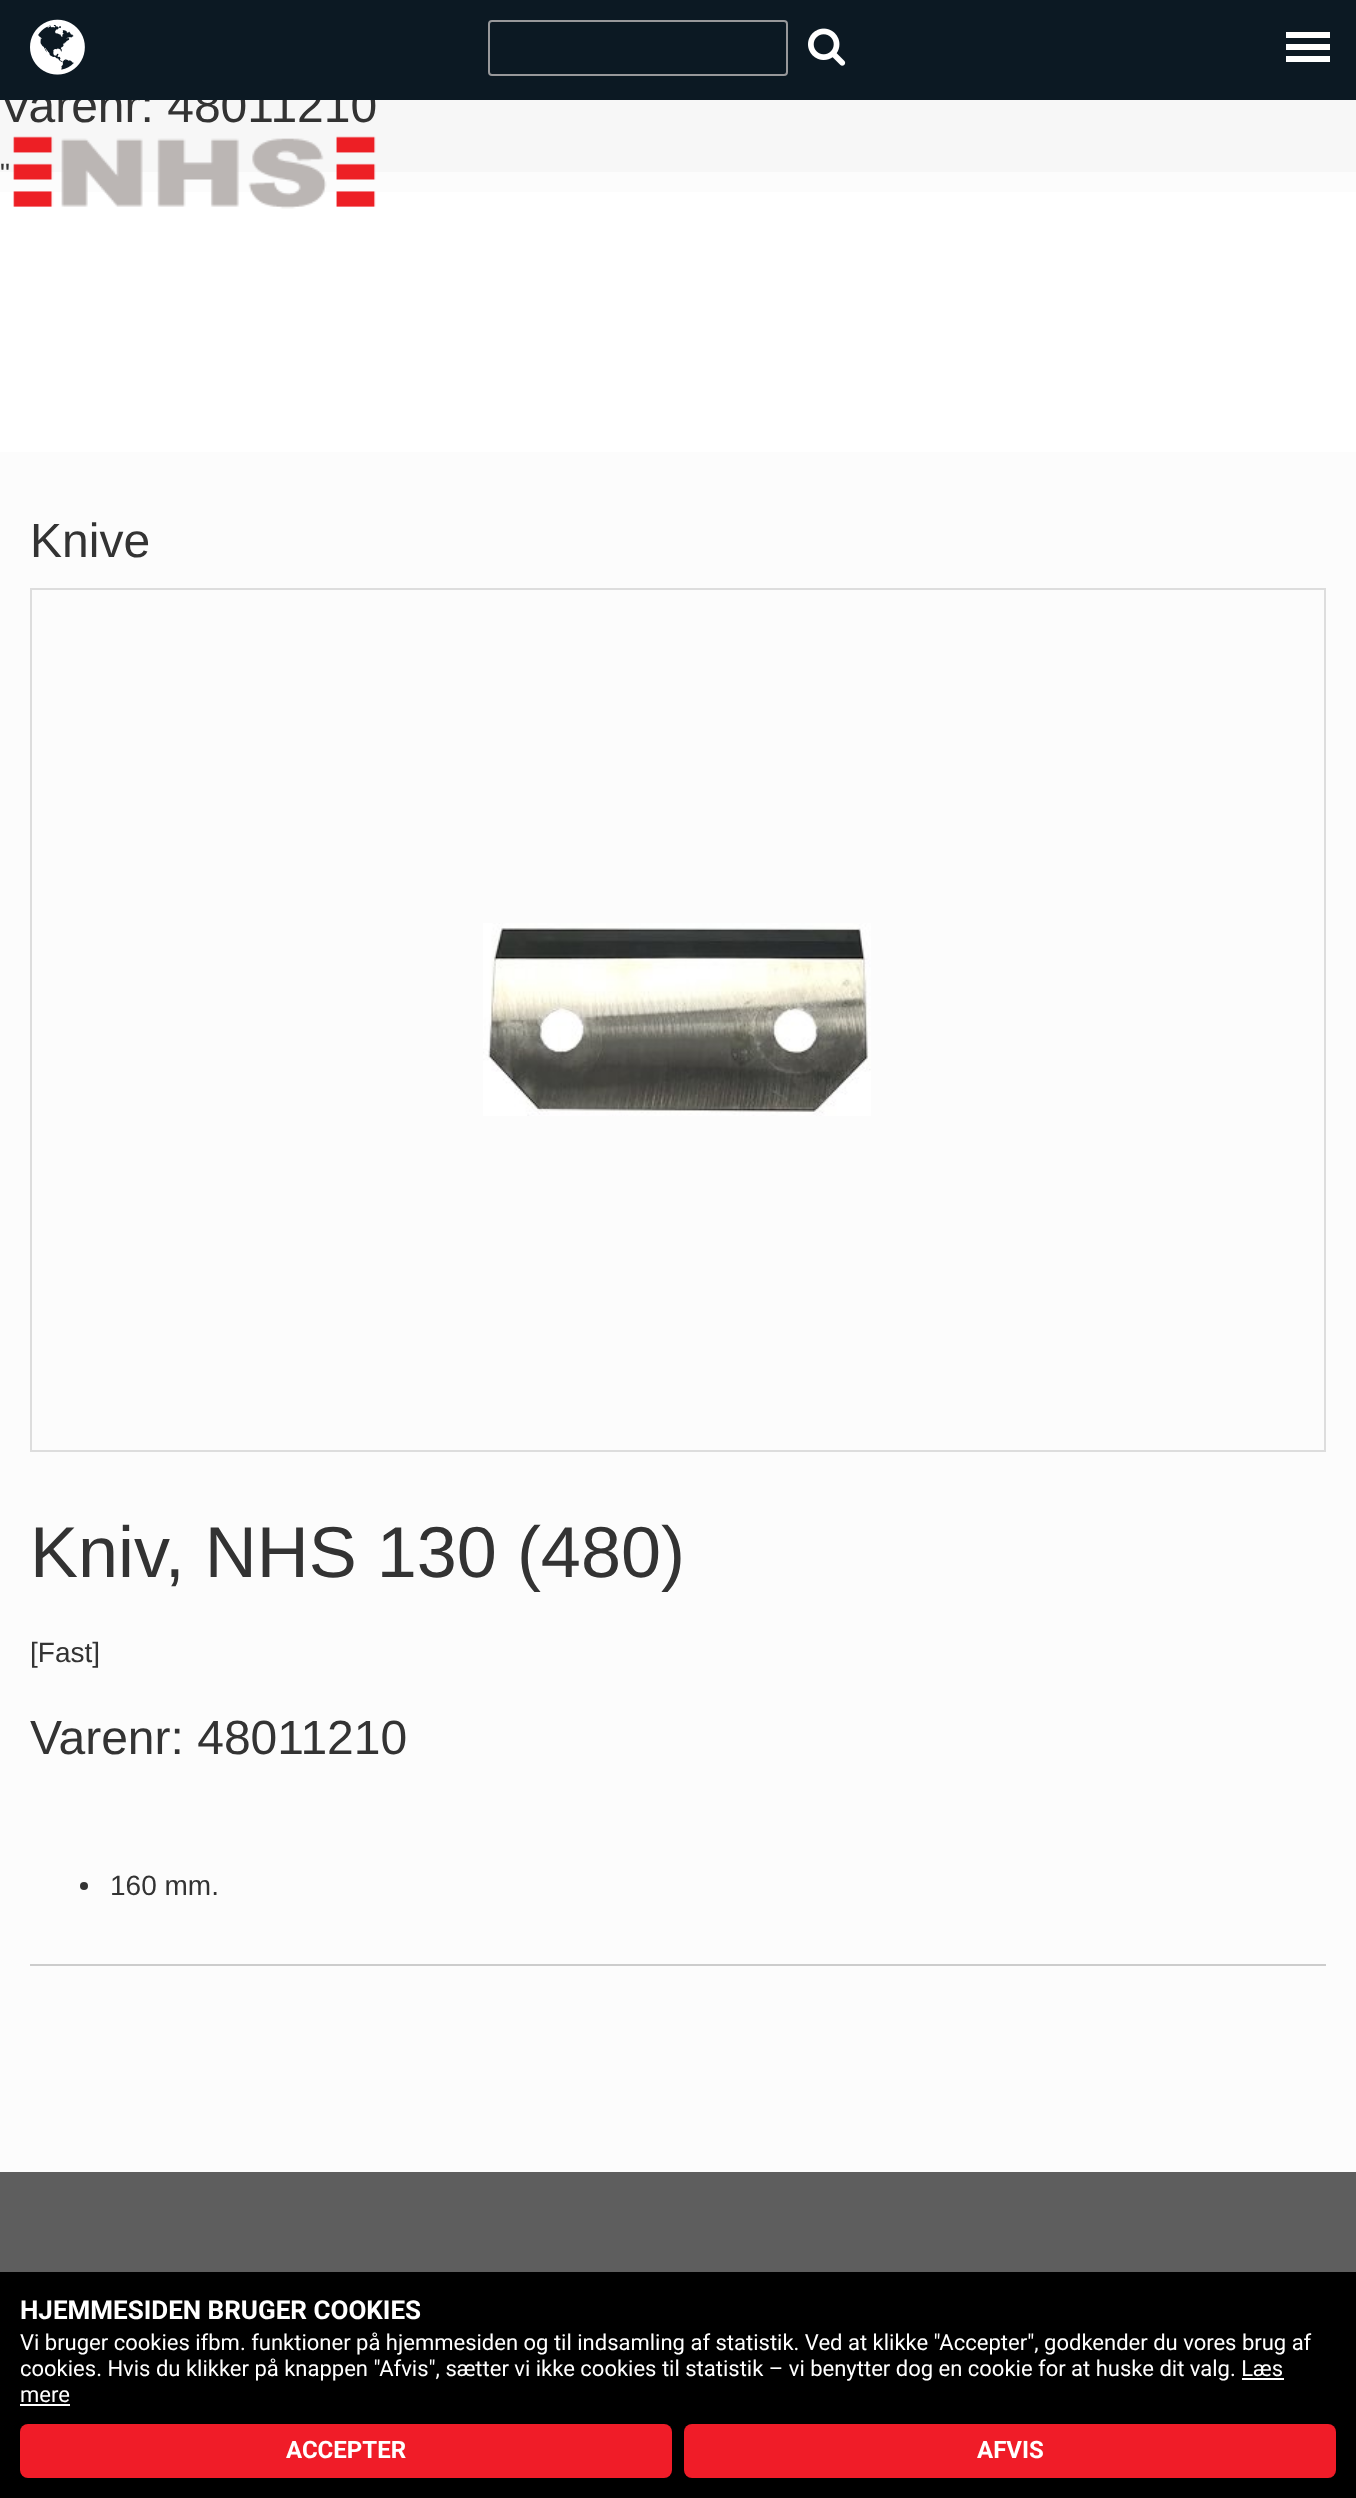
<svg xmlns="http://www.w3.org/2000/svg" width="1356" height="2498">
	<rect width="100%" height="100%" fill="#F7F7F7" />
	<text x="0" y="122" font-family="Liberation Sans" font-size="48" fill="#333333">Varenr: 48011210</text>
	<rect x="0" y="0" width="1356" height="100" fill="#0C1923" />
	<rect x="1286" y="32" width="44" height="6" fill="#FFFFFF" />
	<rect x="1286" y="44" width="44" height="6" fill="#FFFFFF" />
	<rect x="1286" y="56" width="44" height="6" fill="#FFFFFF" />
	<image x="30" y="19" width="55" height="56" href="assets/img1.png" />
	<text x="0" y="183" font-family="Liberation Sans" font-size="28" fill="#333333">"</text>
	<rect x="0" y="172" width="1356" height="2000" fill="#FCFCFC" />
	<rect x="489" y="21" width="298" height="54" rx="3" fill="none" stroke="#98989A" stroke-width="2" />
	<image x="808" y="28" width="38" height="38" href="assets/img2.png" />
	<rect x="0" y="192" width="1356" height="260" fill="#FFFFFF" />
	<image x="13" y="136" width="363" height="73" href="assets/img3.png" />
	<text x="30" y="557" font-family="Liberation Sans" font-size="48" fill="#333333">Knive</text>
	<rect x="31" y="589" width="1294" height="862" fill="none" stroke="#DDDDDD" stroke-width="2" />
	<image x="483" y="923" width="388" height="193" href="assets/img4.png" />
	<text x="30" y="1577" font-family="Liberation Sans" font-size="72" fill="#333333">Kniv, NHS 130 (480)</text>
	<text x="30" y="1662" font-family="Liberation Sans" font-size="28" fill="#333333">[Fast]</text>
	<text x="30" y="1754" font-family="Liberation Sans" font-size="48" fill="#333333">Varenr: 48011210</text>
	<circle cx="84" cy="1886" r="4" fill="#333333" />
	<text x="110" y="1895" font-family="Liberation Sans" font-size="28" fill="#333333">160 mm.</text>
	<rect x="30" y="1964" width="1296" height="2" fill="#CCCCCC" />
	<rect x="0" y="2172" width="1356" height="100" fill="#5E5E5E" />
	<rect x="0" y="2272" width="1356" height="226" fill="#000000" />
	<text x="20" y="2319" font-family="Roboto" font-size="26" font-weight="700" fill="#FFFFFF">HJEMMESIDEN BRUGER COOKIES</text>
	<g font-family="Roboto" font-size="22" fill="#FFFFFF">
		<text x="20" y="2350">Vi bruger cookies ifbm. funktioner på hjemmesiden og til indsamling af statistik. Ved at klikke "Accepter", godkender du vores brug af</text>
		<text x="20" y="2376">cookies. Hvis du klikker på knappen "Afvis", sætter vi ikke cookies til statistik – vi benytter dog en cookie for at huske dit valg. Læs</text>
		<text x="20" y="2402">mere</text>
	</g>
	<rect x="1242" y="2378" width="42" height="2" fill="#FFFFFF" />
	<rect x="20" y="2404" width="50" height="2" fill="#FFFFFF" />
	<rect x="20" y="2424" width="652" height="54" rx="8" fill="#F01C28" />
	<text x="286" y="2458" font-family="Roboto" font-size="24" font-weight="700" fill="#FFFFFF">ACCEPTER</text>
	<rect x="684" y="2424" width="652" height="54" rx="8" fill="#F01C28" />
	<text x="977" y="2458" font-family="Roboto" font-size="24" font-weight="700" fill="#FFFFFF">AFVIS</text>
</svg>
